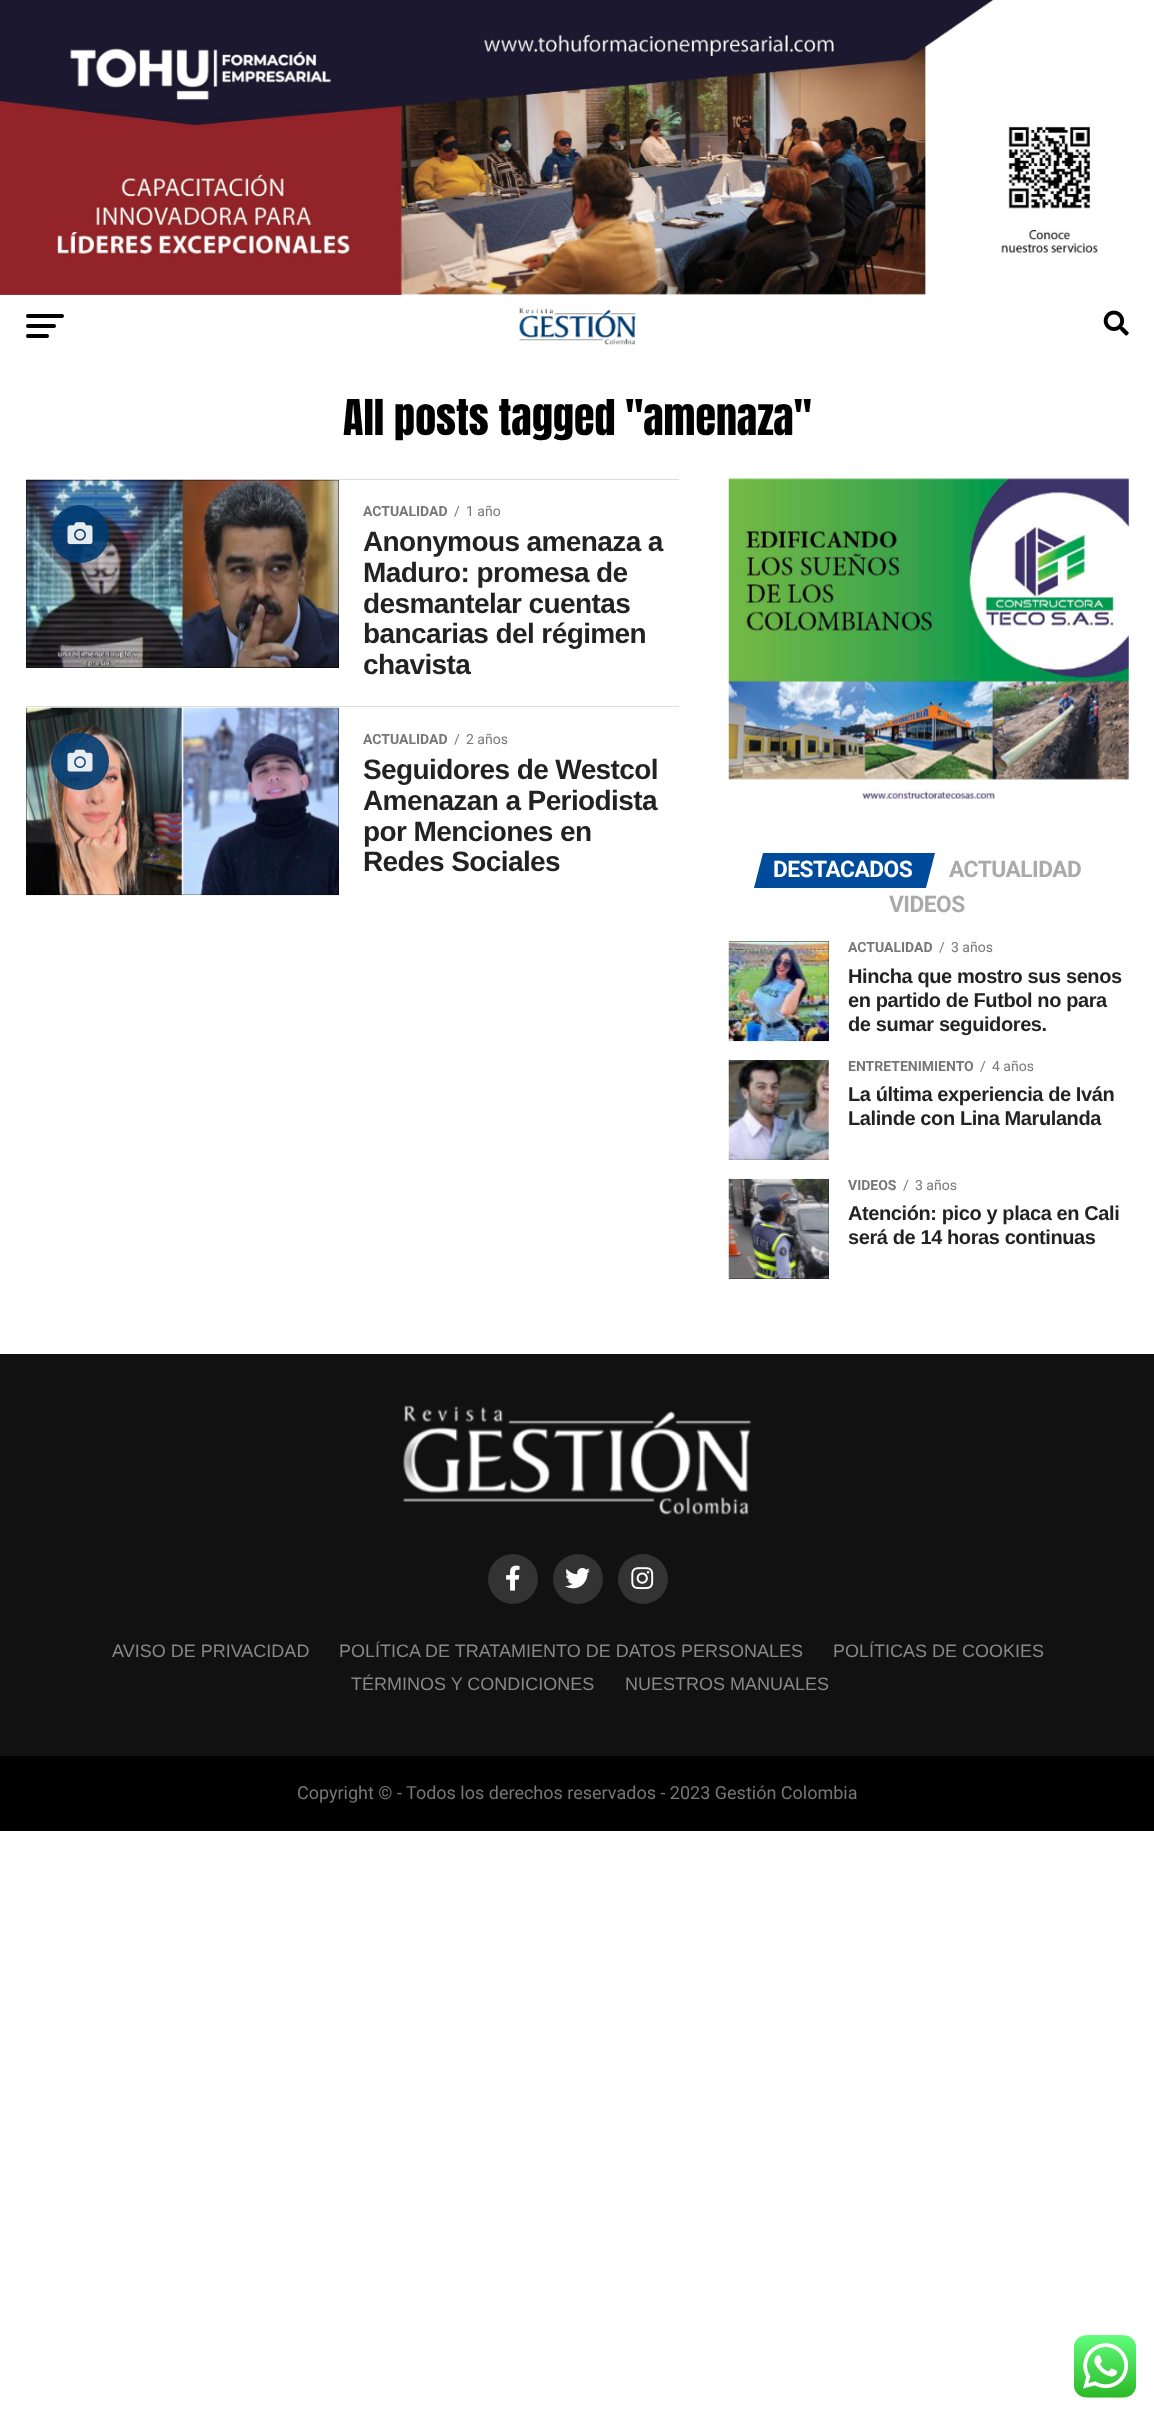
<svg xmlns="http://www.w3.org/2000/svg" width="1154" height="2416">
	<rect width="100%" height="100%" fill="#FFFFFF" />
	<image x="0" y="0" width="1098" height="295" href="assets/img1.png" />
	<rect x="26" y="314" width="38" height="4" rx="2" fill="#000000" />
	<rect x="26" y="324" width="30" height="4" rx="2" fill="#000000" />
	<rect x="26" y="334" width="23" height="4" rx="2" fill="#000000" />
	<image x="519" y="308" width="117" height="37" href="assets/img2.png" />
	<image x="1103" y="310" width="26" height="26" href="assets/img3.png" />
	<text x="343" y="435" font-family="Anton" font-size="42" fill="#000000">All posts tagged "amenaza"</text>
	<rect x="26" y="479" width="653" height="1" fill="#DDDDDD" />
	<rect x="26" y="480" width="313" height="188" fill="#000000" />
	<image x="26" y="479" width="313" height="189" href="assets/img4.png" />
	<circle cx="80" cy="534" r="29" fill="#003C72" fill-opacity="0.9" />
	<image x="67" y="522" width="26" height="23" href="assets/img5.png" />
	<text x="363" y="516" font-family="Roboto" font-size="14" font-weight="700" fill="#777777">ACTUALIDAD</text>
	<g font-family="Roboto" font-size="14" fill="#777777">
		<text x="454" y="516">/</text>
		<text x="466" y="516">1 año</text>
	</g>
	<g font-family="Liberation Sans" font-size="28" font-weight="700" letter-spacing="-0.6" fill="#222222">
		<text x="363" y="551">Anonymous amenaza a</text>
		<text x="363" y="582">Maduro: promesa de</text>
		<text x="363" y="613">desmantelar cuentas</text>
		<text x="363" y="643">bancarias del régimen</text>
		<text x="363" y="674">chavista</text>
	</g>
	<rect x="26" y="706" width="653" height="1" fill="#DDDDDD" />
	<rect x="26" y="708" width="313" height="187" fill="#000000" />
	<image x="26" y="707" width="313" height="189" href="assets/img6.png" />
	<rect x="51" y="733" width="58" height="57" rx="28.5" fill="#003C72" fill-opacity="0.9" />
	<image x="67" y="749" width="26" height="23" href="assets/img7.png" />
	<text x="363" y="744" font-family="Roboto" font-size="14" font-weight="700" fill="#777777">ACTUALIDAD</text>
	<g font-family="Roboto" font-size="14" fill="#777777">
		<text x="454" y="744">/</text>
		<text x="466" y="744">2 años</text>
	</g>
	<g font-family="Liberation Sans" font-size="28" font-weight="700" letter-spacing="-0.6" fill="#222222">
		<text x="363" y="779">Seguidores de Westcol</text>
		<text x="363" y="810">Amenazan a Periodista</text>
		<text x="363" y="841">por Menciones en</text>
		<text x="363" y="871">Redes Sociales</text>
	</g>
	<image x="728" y="478" width="401" height="323" href="assets/img8.png" />
	<path d="M763 853H935L926 888H754Z" fill="#004B9C" />
	<text x="773" y="877" font-family="Roboto" font-size="22.75" font-weight="700" letter-spacing="-0.5" fill="#FFFFFF">DESTACADOS</text>
	<g font-family="Roboto" font-size="22.75" font-weight="700" letter-spacing="-0.5" fill="#AAAAAA">
		<text x="949" y="877">ACTUALIDAD</text>
		<text x="889" y="912">VIDEOS</text>
	</g>
	<rect x="729" y="941" width="100" height="100" fill="#000000" />
	<image x="728" y="941" width="101" height="101" href="assets/img9.png" />
	<text x="848" y="952" font-family="Roboto" font-size="14" font-weight="700" fill="#777777">ACTUALIDAD</text>
	<g font-family="Roboto" font-size="14" fill="#777777">
		<text x="939" y="952">/</text>
		<text x="951" y="952">3 años</text>
	</g>
	<g font-family="Liberation Sans" font-size="20" font-weight="700" letter-spacing="-0.4" fill="#222222">
		<text x="848" y="983">Hincha que mostro sus senos</text>
		<text x="848" y="1007">en partido de Futbol no para</text>
		<text x="848" y="1031">de sumar seguidores.</text>
	</g>
	<image x="728" y="1060" width="101" height="100" href="assets/img10.png" />
	<text x="848" y="1071" font-family="Roboto" font-size="14" font-weight="700" fill="#777777">ENTRETENIMIENTO</text>
	<g font-family="Roboto" font-size="14" fill="#777777">
		<text x="980" y="1071">/</text>
		<text x="992" y="1071">4 años</text>
	</g>
	<g font-family="Liberation Sans" font-size="20" font-weight="700" letter-spacing="-0.4" fill="#222222">
		<text x="848" y="1101">La última experiencia de Iván</text>
		<text x="848" y="1125">Lalinde con Lina Marulanda</text>
	</g>
	<rect x="729" y="1179" width="100" height="100" fill="#000000" />
	<image x="728" y="1178" width="101" height="101" href="assets/img11.png" />
	<text x="848" y="1190" font-family="Roboto" font-size="14" font-weight="700" fill="#777777">VIDEOS</text>
	<g font-family="Roboto" font-size="14" fill="#777777">
		<text x="903" y="1190">/</text>
		<text x="915" y="1190">3 años</text>
	</g>
	<g font-family="Liberation Sans" font-size="20" font-weight="700" letter-spacing="-0.4" fill="#222222">
		<text x="848" y="1220">Atención: pico y placa en Cali</text>
		<text x="848" y="1244">será de 14 horas continuas</text>
	</g>
	<rect x="0" y="1354" width="1154" height="402" fill="#111111" />
	<image x="403" y="1405" width="349" height="110" href="assets/img12.png" />
	<circle cx="513" cy="1579" r="25" fill="#333333" />
	<image x="506" y="1565" width="14" height="26" href="assets/img13.png" />
	<circle cx="578" cy="1579" r="25" fill="#333333" />
	<image x="565" y="1568" width="25" height="21" href="assets/img14.png" />
	<circle cx="643" cy="1579" r="25" fill="#333333" />
	<image x="631" y="1567" width="23" height="23" href="assets/img15.png" />
	<g font-family="Liberation Sans" font-size="18" fill="#888888">
		<text x="112" y="1657">AVISO DE PRIVACIDAD</text>
		<text x="339" y="1657">POLÍTICA DE TRATAMIENTO DE DATOS PERSONALES</text>
		<text x="833" y="1657">POLÍTICAS DE COOKIES</text>
		<text x="351" y="1690">TÉRMINOS Y CONDICIONES</text>
		<text x="625" y="1690">NUESTROS MANUALES</text>
	</g>
	<rect x="0" y="1756" width="1154" height="75" fill="#000000" />
	<text x="297" y="1799" font-family="Roboto" font-size="18" fill="#777777">Copyright © - Todos los derechos reservados - 2023 Gestión Colombia</text>
	<image x="1074" y="2335" width="62" height="63" href="assets/img16.png" />
</svg>
